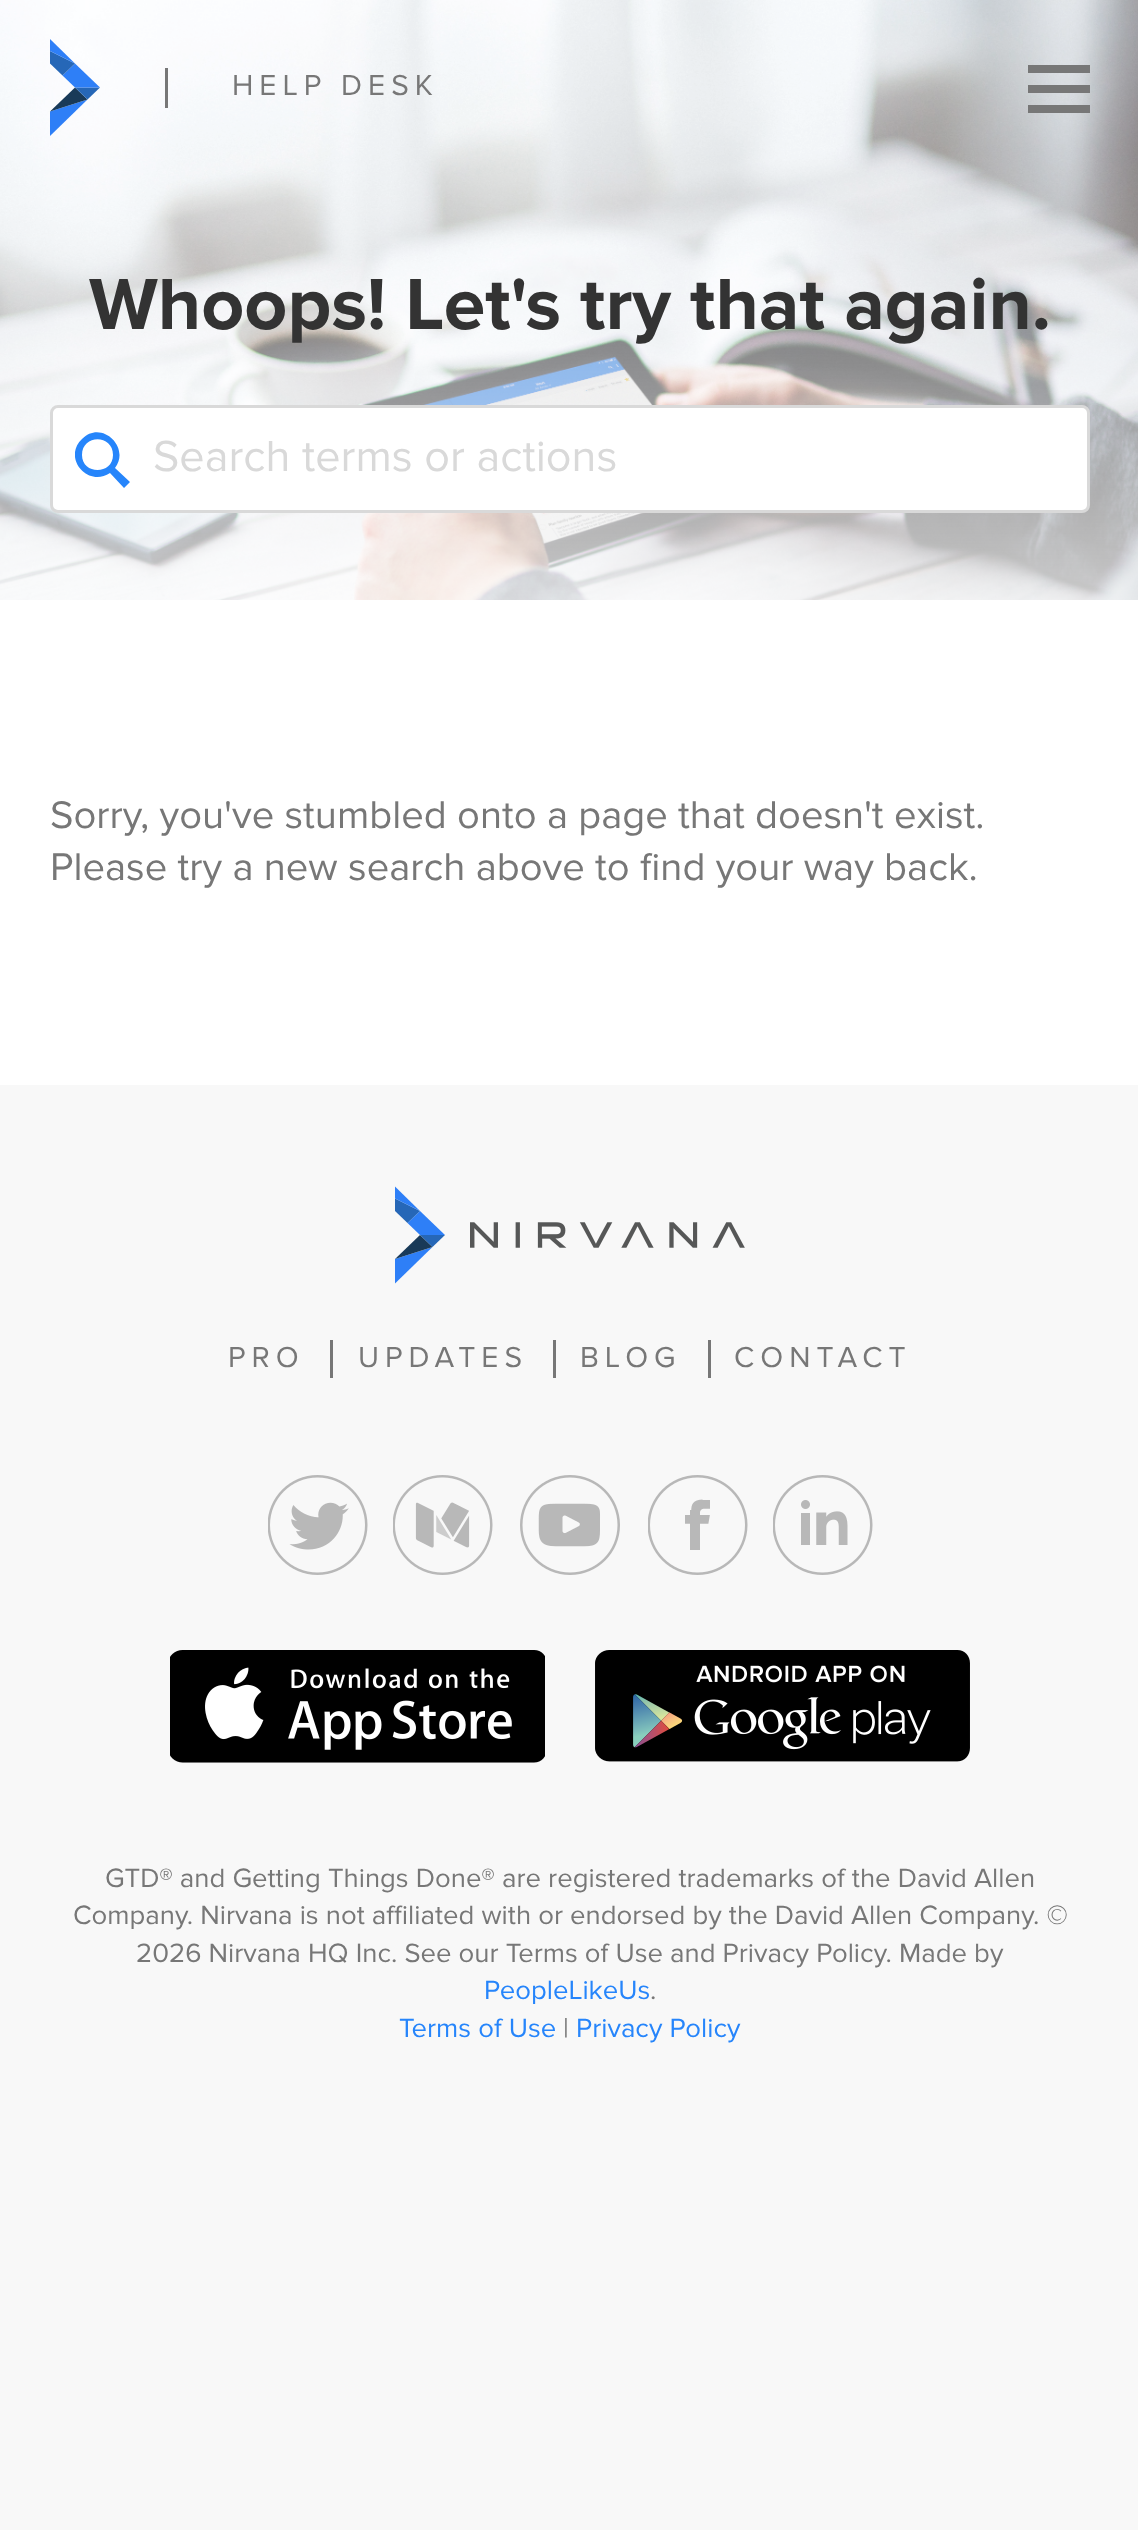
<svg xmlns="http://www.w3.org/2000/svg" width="1138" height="2530">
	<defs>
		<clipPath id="clip1"><rect x="75" y="430" width="55" height="60" /></clipPath>
	</defs>
	<rect width="100%" height="100%" fill="#F8F8F8" />
	<image x="0" y="0" width="1138" height="600" href="assets/img1.png" />
	<path d="M50 136V111.5L87.5 99.5Z" fill="#2E7FF7" />
	<path d="M50 111.5L75 87.5L87.5 99.5Z" fill="#193A58" />
	<path d="M75 87.5H100L87.5 99.5Z" fill="#2667B7" />
	<path d="M75 87.5L62.5 75.5L75 63.5L100 87.5Z" fill="#2E7FF7" />
	<path d="M50 51V63.5L62.5 75.5L75 63.5Z" fill="#2667B7" />
	<path d="M50 39L75 63.5L50 51Z" fill="#2E7FF7" />
	<rect x="165" y="68" width="3" height="40" fill="#777777" />
	<text x="232" y="95" font-family="Proxima Nova" font-size="30" letter-spacing="6" fill="#777777">HELP DESK</text>
	<rect x="1028" y="85" width="62" height="8" fill="#777777" />
	<rect x="1028" y="65" width="62" height="8" fill="#777777" />
	<rect x="1028" y="105" width="62" height="8" fill="#777777" />
	<text x="89" y="329" font-family="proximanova" font-size="75" font-weight="700" fill="#333333">Whoops! Let's try that again.</text>
	<rect x="51.5" y="406.5" width="1037" height="105" rx="6.5" fill="#FFFFFF" stroke="#D9D9D9" stroke-width="3" />
	<g clip-path="url(#clip1)">
		<path d="M130 482L115 468C131 447 101 419 82 439C62 458 88 488 110 473L124 488ZM82 455C82 434 113 434 113 455C113 475 82 475 82 455Z" fill="#2685FB" />
	</g>
	<text x="153" y="471" font-family="Proxima Nova" font-size="45" fill="#D9D9D9">Search terms or actions</text>
	<rect x="0" y="600" width="1138" height="485" fill="#FFFFFF" />
	<g font-family="Proxima Nova" font-size="40" fill="#777777">
		<text x="50" y="828">Sorry, you've stumbled onto a page that doesn't exist.</text>
		<text x="50" y="880">Please try a new search above to find your way back.</text>
	</g>
	<path d="M395 1283.5V1259L432.5 1247Z" fill="#2E7FF7" />
	<path d="M395 1259L420 1235L432.5 1247Z" fill="#193A58" />
	<path d="M420 1235H445L432.5 1247Z" fill="#2667B7" />
	<path d="M420 1235L407.5 1223L420 1211L445 1235Z" fill="#2E7FF7" />
	<path d="M395 1198.5V1211L407.5 1223L420 1211Z" fill="#2667B7" />
	<path d="M395 1186.5L420 1211L395 1198.5Z" fill="#2E7FF7" />
	<image x="470" y="1222" width="275" height="26" href="assets/img2.png" />
	<g font-family="Proxima Nova" font-size="30" letter-spacing="6" fill="#777777">
		<text x="228" y="1367">PRO</text>
		<text x="358" y="1367">UPDATES</text>
	</g>
	<rect x="330" y="1340" width="3" height="38" fill="#777777" />
	<text x="580" y="1367" font-family="Proxima Nova" font-size="30" letter-spacing="6" fill="#777777">BLOG</text>
	<rect x="553" y="1340" width="3" height="38" fill="#777777" />
	<text x="734" y="1367" font-family="Proxima Nova" font-size="30" letter-spacing="6" fill="#777777">CONTACT</text>
	<rect x="708" y="1340" width="3" height="38" fill="#777777" />
	<image x="268" y="1475" width="100" height="100" href="assets/img3.png" />
	<image x="393" y="1475" width="100" height="100" href="assets/img4.png" />
	<image x="520" y="1475" width="100" height="100" href="assets/img5.png" />
	<image x="648" y="1475" width="100" height="100" href="assets/img6.png" />
	<image x="773" y="1475" width="100" height="100" href="assets/img7.png" />
	<image x="170" y="1650" width="375" height="113" href="assets/img8.png" />
	<image x="595" y="1650" width="375" height="112" href="assets/img9.png" />
	<g font-family="Proxima Nova" font-size="27.5" fill="#777777">
		<text x="105" y="1887">GTD® and Getting Things Done® are registered trademarks of the David Allen</text>
		<text x="73" y="1924">Company. Nirvana is not affiliated with or endorsed by the David Allen Company. ©</text>
		<text x="136" y="1962">2026 Nirvana HQ Inc. See our Terms of Use and Privacy Policy. Made by</text>
	</g>
	<text x="484" y="1999" font-family="Proxima Nova" font-size="27.5" fill="#2685FB">PeopleLikeUs</text>
	<text x="650" y="1999" font-family="Proxima Nova" font-size="27.5" fill="#777777">.</text>
	<text x="399" y="2037" font-family="Proxima Nova" font-size="27.5" fill="#2685FB">Terms of Use</text>
	<text x="563" y="2037" font-family="Proxima Nova" font-size="27.5" fill="#777777">|</text>
	<text x="576" y="2037" font-family="Proxima Nova" font-size="27.5" fill="#2685FB">Privacy Policy</text>
</svg>
